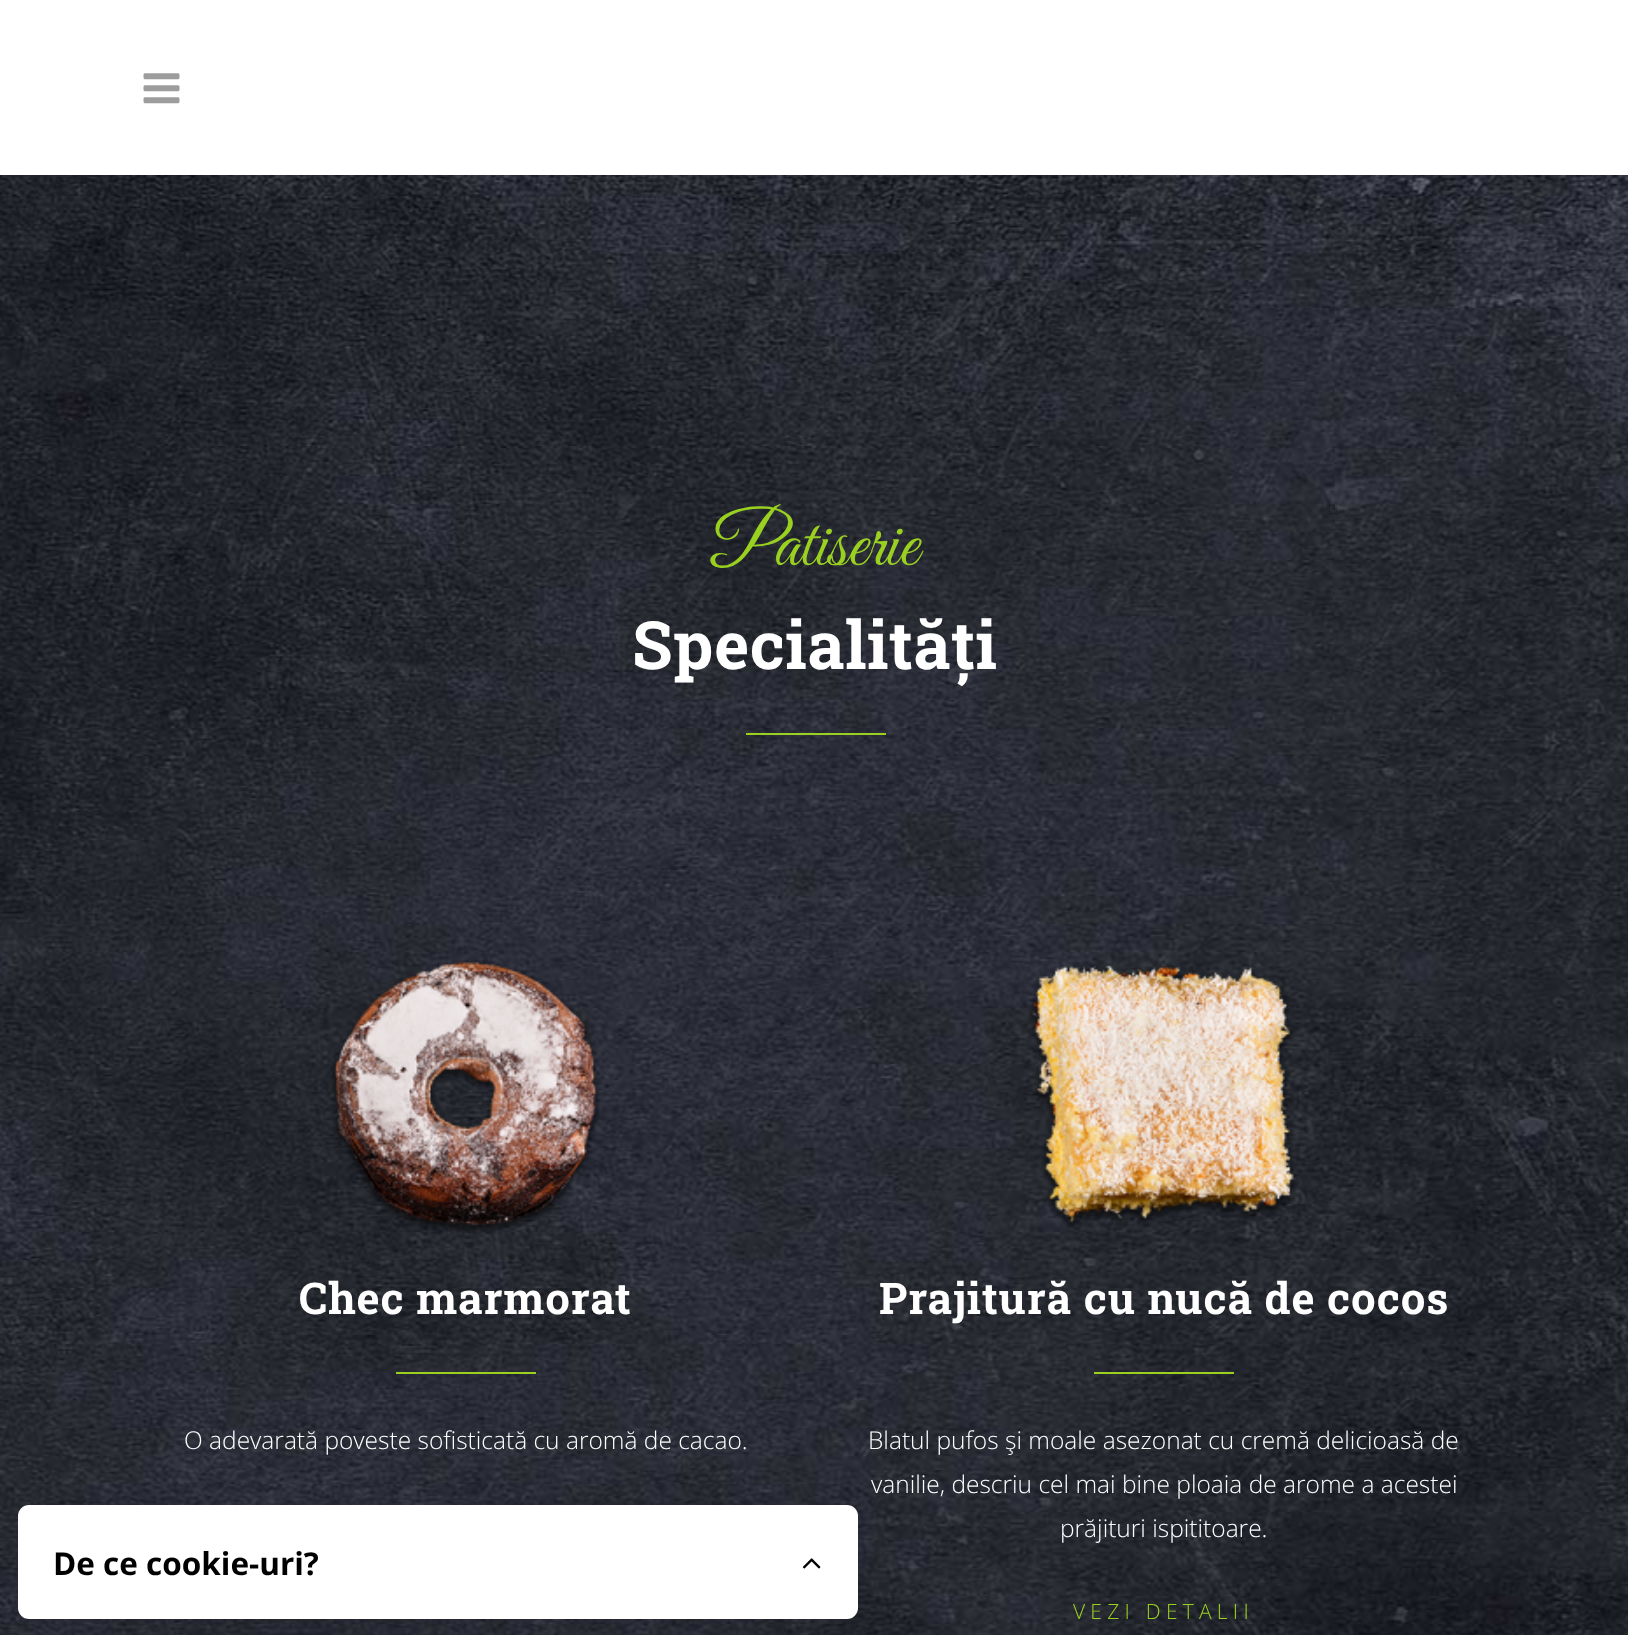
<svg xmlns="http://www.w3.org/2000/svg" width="1628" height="1635">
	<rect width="100%" height="100%" fill="#FFFFFF" />
	<image x="0" y="175" width="1628" height="1460" href="assets/img1.png" />
	<image x="143" y="73" width="37" height="31" href="assets/img2.png" />
	<text x="710" y="565" font-family="Great Vibes" font-size="75" letter-spacing="-0.25" fill="#9AD121">Patiserie</text>
	<text x="632" y="669" font-family="Roboto Slab" font-size="66.5" font-weight="700" letter-spacing="0.5" fill="#FFFFFF">Specialități</text>
	<rect x="746" y="733" width="140" height="2" fill="#9AD121" />
	<image x="331" y="960" width="269" height="273" href="assets/img3.png" />
	<text x="299" y="1314" font-family="Roboto Slab" font-size="43.75" font-weight="700" letter-spacing="0.9" fill="#FFFFFF">Chec marmorat</text>
	<rect x="396" y="1372" width="140" height="2" fill="#9AD121" />
	<text x="184" y="1449" font-family="Open Sans" font-size="24.5" font-weight="300" fill="#FFFFFF">O adevarată poveste sofisticată cu aromă de cacao.</text>
	<image x="1028" y="965" width="271" height="264" href="assets/img4.png" />
	<text x="879" y="1314" font-family="Roboto Slab" font-size="43.75" font-weight="700" letter-spacing="0.9" fill="#FFFFFF">Prajitură cu nucă de cocos</text>
	<rect x="1094" y="1372" width="140" height="2" fill="#9AD121" />
	<g font-family="Open Sans" font-size="24.5" font-weight="300" fill="#FFFFFF">
		<text x="868" y="1449">Blatul pufos şi moale asezonat cu cremă delicioasă de</text>
		<text x="871" y="1493">vanilie, descriu cel mai bine ploaia de arome a acestei</text>
		<text x="1060" y="1537">prăjituri ispititoare.</text>
	</g>
	<text x="1073" y="1619" font-family="Open Sans" font-size="21" font-weight="300" letter-spacing="5.25" fill="#9AD121">VEZI DETALII</text>
	<rect x="18" y="1505" width="840" height="114" rx="11" fill="#000000" fill-opacity="0.15" filter="blur(10.5px)" />
	<rect x="18" y="1505" width="840" height="114" rx="11" fill="#FFFFFF" />
	<text x="53" y="1575" font-family="Open Sans" font-size="31.5" font-weight="700" fill="#000000">De ce cookie-uri?</text>
	<image x="802" y="1558" width="19" height="11" href="assets/img5.png" />
</svg>
